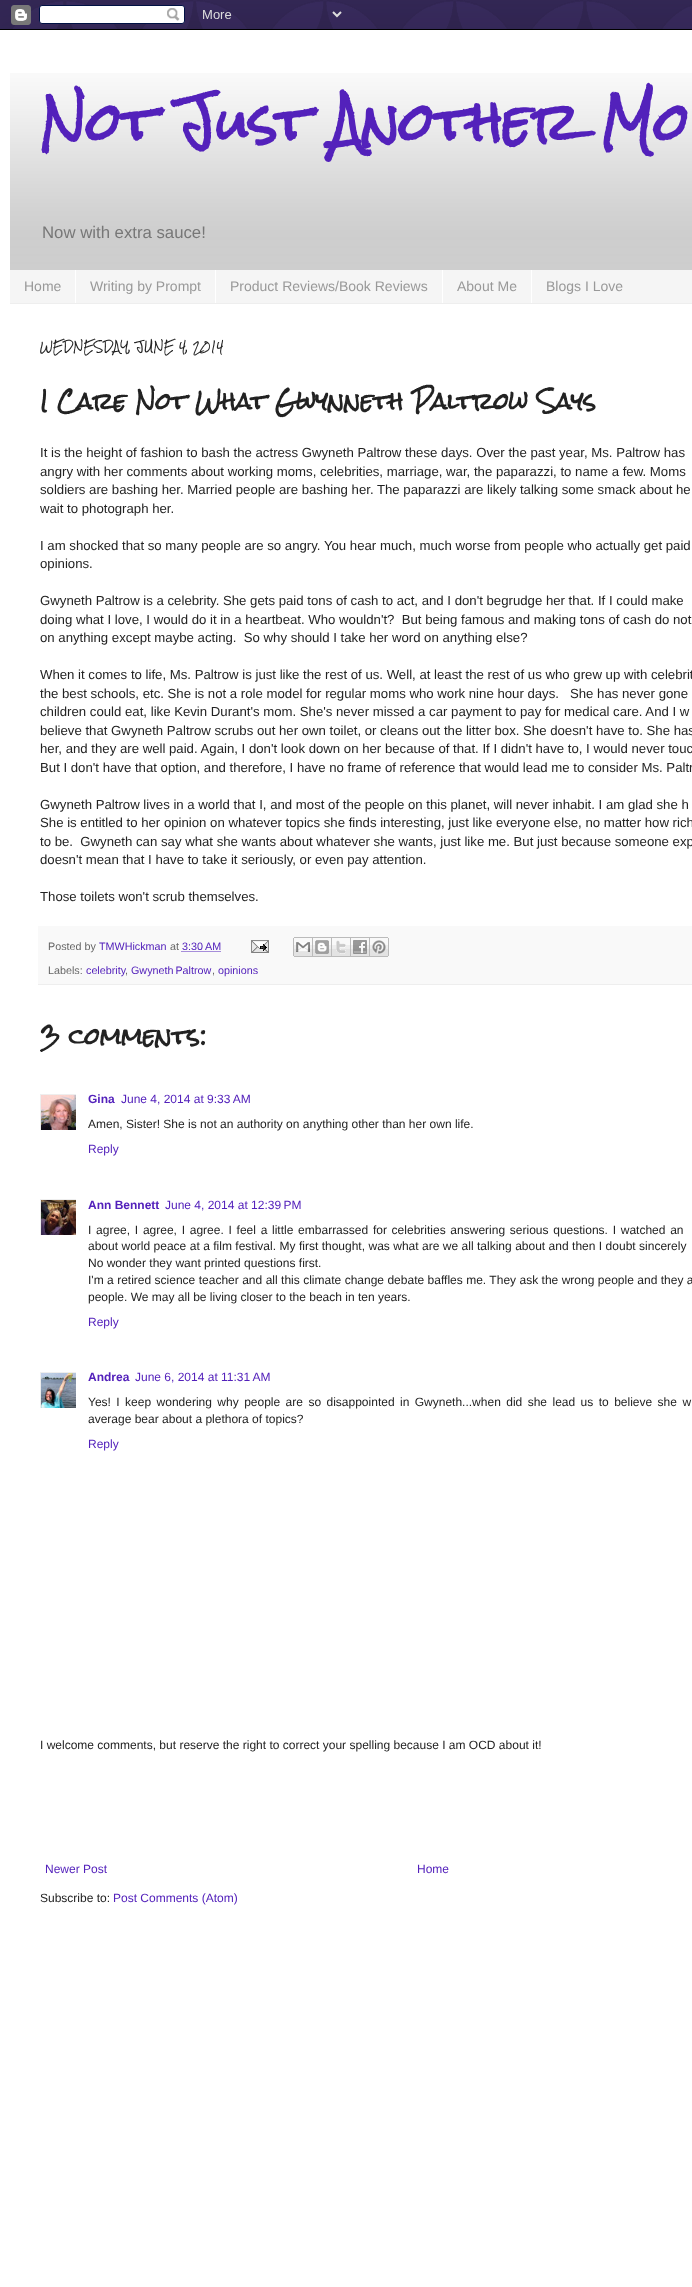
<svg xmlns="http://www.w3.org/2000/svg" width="692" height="2287">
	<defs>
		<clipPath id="clip1"><rect x="40" y="1094" width="36" height="36" /></clipPath>
		<clipPath id="clip2"><rect x="40" y="1199" width="36" height="36" /></clipPath>
		<clipPath id="clip3"><rect x="40" y="1372" width="36" height="36" /></clipPath>
	</defs>
	<rect width="100%" height="100%" fill="#8666DD" />
	<image x="0" y="0" width="692" height="29" href="assets/img1.png" />
	<image x="0" y="0" width="692" height="29" href="assets/img2.png" />
	<rect x="0" y="30" width="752" height="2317" fill="#000000" fill-opacity="0.15" filter="blur(20px)" />
	<image x="0" y="0" width="692" height="30" href="assets/img3.png" />
	<rect x="0" y="30" width="692" height="2257" fill="#FFFFFF" />
	<image x="10" y="73" width="682" height="197" href="assets/img4.png" />
	<text x="40" y="142" font-family="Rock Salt" font-size="50" font-weight="700" fill="#5321BB">Not Just Another Mo</text>
	<text x="42" y="238" font-family="Liberation Sans" font-size="16.75" fill="#777777">Now with extra sauce!</text>
	<rect x="10" y="270" width="682" height="33" fill="#F5F5F5" />
	<rect x="10" y="303" width="682" height="1" fill="#EEEEEE" />
	<text x="24" y="291" font-family="Liberation Sans" font-size="14" fill="#999999">Home</text>
	<rect x="75" y="270" width="1" height="33" fill="#FFFFFF" />
	<text x="90" y="291" font-family="Liberation Sans" font-size="14" fill="#999999">Writing by Prompt</text>
	<rect x="215" y="270" width="1" height="33" fill="#FFFFFF" />
	<text x="230" y="291" font-family="Liberation Sans" font-size="14" fill="#999999">Product Reviews/Book Reviews</text>
	<rect x="442" y="270" width="1" height="33" fill="#FFFFFF" />
	<text x="457" y="291" font-family="Liberation Sans" font-size="14" fill="#999999">About Me</text>
	<rect x="531" y="270" width="1" height="33" fill="#FFFFFF" />
	<text x="546" y="291" font-family="Liberation Sans" font-size="14" fill="#999999">Blogs I Love</text>
	<text x="40" y="351" font-family="Rock Salt" font-size="11" fill="#222222">WEDNESDAY, JUNE 4, 2014</text>
	<text x="40" y="410" font-family="Rock Salt" font-size="22" font-weight="700" fill="#222222">I Care Not What Gwynneth Paltrow Says</text>
	<g font-family="Liberation Sans" font-size="13.2" fill="#222222">
		<text x="40" y="457">It is the height of fashion to bash the actress Gwyneth Paltrow these days. Over the past year, Ms. Paltrow has</text>
		<text x="40" y="476">angry with her comments about working moms, celebrities, marriage, war, the paparazzi, to name a few. Moms</text>
		<text x="40" y="494">soldiers are bashing her. Married people are bashing her. The paparazzi are likely talking some smack about he</text>
		<text x="40" y="513">wait to photograph her.</text>
		<text x="40" y="550">I am shocked that so many people are so angry. You hear much, much worse from people who actually get paid</text>
		<text x="40" y="568">opinions.</text>
		<text x="40" y="605">Gwyneth Paltrow is a celebrity. She gets paid tons of cash to act, and I don't begrudge her that. If I could make</text>
		<text x="40" y="624" xml:space="preserve">doing what I love, I would do it in a heartbeat. Who wouldn't?  But being famous and making tons of cash do not</text>
		<text x="40" y="642" xml:space="preserve">on anything except maybe acting.  So why should I take her word on anything else?</text>
		<text x="40" y="679">When it comes to life, Ms. Paltrow is just like the rest of us. Well, at least the rest of us who grew up with celebrit</text>
		<text x="40" y="698" xml:space="preserve">the best schools, etc. She is not a role model for regular moms who work nine hour days.   She has never gone</text>
		<text x="40" y="716">children could eat, like Kevin Durant's mom. She's never missed a car payment to pay for medical care. And I w</text>
		<text x="40" y="735">believe that Gwyneth Paltrow scrubs out her own toilet, or cleans out the litter box. She doesn't have to. She has</text>
		<text x="40" y="753">her, and they are well paid. Again, I don't look down on her because of that. If I didn't have to, I would never touc</text>
		<text x="40" y="772">But I don't have that option, and therefore, I have no frame of reference that would lead me to consider Ms. Paltr</text>
		<text x="40" y="809">Gwyneth Paltrow lives in a world that I, and most of the people on this planet, will never inhabit. I am glad she h</text>
		<text x="40" y="827">She is entitled to her opinion on whatever topics she finds interesting, just like everyone else, no matter how rich</text>
		<text x="40" y="846" xml:space="preserve">to be.  Gwyneth can say what she wants about whatever she wants, just like me. But just because someone exp</text>
		<text x="40" y="864">doesn't mean that I have to take it seriously, or even pay attention.</text>
		<text x="40" y="901">Those toilets won't scrub themselves.</text>
	</g>
	<rect x="38" y="926" width="654" height="58" fill="#F9F9F9" />
	<rect x="38" y="984" width="654" height="1" fill="#EEEEEE" />
	<text x="48" y="950" font-family="Liberation Sans" font-size="10.75" fill="#666666">Posted by</text>
	<text x="99" y="950" font-family="Liberation Sans" font-size="10.75" fill="#5321BB">TMWHickman</text>
	<text x="170" y="950" font-family="Liberation Sans" font-size="10.75" fill="#666666">at</text>
	<text x="182" y="950" font-family="Liberation Sans" font-size="10.75" fill="#5321BB">3:30 AM</text>
	<path d="M181.5 951.5H221" fill="none" stroke="#5321BB" stroke-dasharray="1 1" />
	<image x="251" y="940" width="18" height="13" href="assets/img5.png" />
	<image x="293" y="937" width="20" height="20" href="assets/img6.png" />
	<image x="313" y="937" width="19" height="20" href="assets/img7.png" />
	<image x="332" y="937" width="19" height="20" href="assets/img8.png" />
	<image x="351" y="937" width="19" height="20" href="assets/img9.png" />
	<image x="370" y="937" width="19" height="20" href="assets/img10.png" />
	<text x="48" y="974" font-family="Liberation Sans" font-size="10.75" fill="#666666">Labels:</text>
	<text x="86" y="974" font-family="Liberation Sans" font-size="10.75" fill="#5321BB">celebrity</text>
	<text x="125" y="974" font-family="Liberation Sans" font-size="10.75" fill="#666666">,</text>
	<text x="131" y="974" word-spacing="-1" font-family="Liberation Sans" font-size="10.75" fill="#5321BB">Gwyneth Paltrow</text>
	<text x="212" y="974" font-family="Liberation Sans" font-size="10.75" fill="#666666">,</text>
	<text x="218" y="974" font-family="Liberation Sans" font-size="10.75" fill="#5321BB">opinions</text>
	<text x="40" y="1045" font-family="Rock Salt" font-size="22" font-weight="700" fill="#222222">3 comments:</text>
	<g clip-path="url(#clip1)">
		<rect x="40.5" y="1094.5" width="37" height="37" fill="none" stroke="#EEEEEE" />
	</g>
	<image x="41" y="1095" width="35" height="35" href="assets/img11.png" />
	<text x="88" y="1103" font-family="Liberation Sans" font-size="12" font-weight="700" fill="#5321BB">Gina</text>
	<text x="121" y="1103" font-family="Liberation Sans" font-size="12" fill="#5321BB">June 4, 2014 at 9:33 AM</text>
	<text x="88" y="1128" font-family="Liberation Sans" font-size="12" fill="#222222">Amen, Sister! She is not an authority on anything other than her own life.</text>
	<text x="88" y="1153" font-family="Liberation Sans" font-size="12" fill="#5321BB">Reply</text>
	<g clip-path="url(#clip2)">
		<rect x="40.5" y="1199.5" width="37" height="37" fill="none" stroke="#EEEEEE" />
	</g>
	<image x="41" y="1200" width="35" height="35" href="assets/img12.png" />
	<text x="88" y="1209" font-family="Liberation Sans" font-size="12" font-weight="700" fill="#5321BB">Ann Bennett</text>
	<text x="165" y="1209" font-family="Liberation Sans" font-size="12" fill="#5321BB">June 4, 2014 at 12:39 PM</text>
	<g font-family="Liberation Sans" font-size="12" fill="#222222">
		<text x="88" y="1234" word-spacing="1.4">I agree, I agree, I agree. I feel a little embarrassed for celebrities answering serious questions. I watched an</text>
		<text x="88" y="1250" word-spacing="0.1">about world peace at a film festival. My first thought, was what are we all talking about and then I doubt sincerely</text>
		<text x="88" y="1267">No wonder they want printed questions first.</text>
		<text x="88" y="1284" word-spacing="0.1">I'm a retired science teacher and all this climate change debate baffles me. They ask the wrong people and they a</text>
		<text x="88" y="1301">people. We may all be living closer to the beach in ten years.</text>
	</g>
	<text x="88" y="1326" font-family="Liberation Sans" font-size="12" fill="#5321BB">Reply</text>
	<g clip-path="url(#clip3)">
		<rect x="40.5" y="1372.5" width="37" height="37" fill="none" stroke="#EEEEEE" />
	</g>
	<image x="41" y="1373" width="35" height="35" href="assets/img13.png" />
	<text x="88" y="1381" font-family="Liberation Sans" font-size="12" font-weight="700" fill="#5321BB">Andrea</text>
	<text x="135" y="1381" font-family="Liberation Sans" font-size="12" fill="#5321BB">June 6, 2014 at 11:31 AM</text>
	<g font-family="Liberation Sans" font-size="12" fill="#222222">
		<text x="88" y="1406" word-spacing="2.1">Yes! I keep wondering why people are so disappointed in Gwyneth...when did she lead us to believe she w</text>
		<text x="88" y="1423">average bear about a plethora of topics?</text>
	</g>
	<text x="88" y="1448" font-family="Liberation Sans" font-size="12" fill="#5321BB">Reply</text>
	<text x="40" y="1749" font-family="Liberation Sans" font-size="12" fill="#222222">I welcome comments, but reserve the right to correct your spelling because I am OCD about it!</text>
	<g font-family="Liberation Sans" font-size="12" fill="#5321BB">
		<text x="45" y="1873">Newer Post</text>
		<text x="417" y="1873">Home</text>
	</g>
	<text x="40" y="1902" font-family="Liberation Sans" font-size="12" fill="#222222">Subscribe to:</text>
	<text x="113" y="1902" font-family="Liberation Sans" font-size="12" fill="#5321BB">Post Comments (Atom)</text>
</svg>
